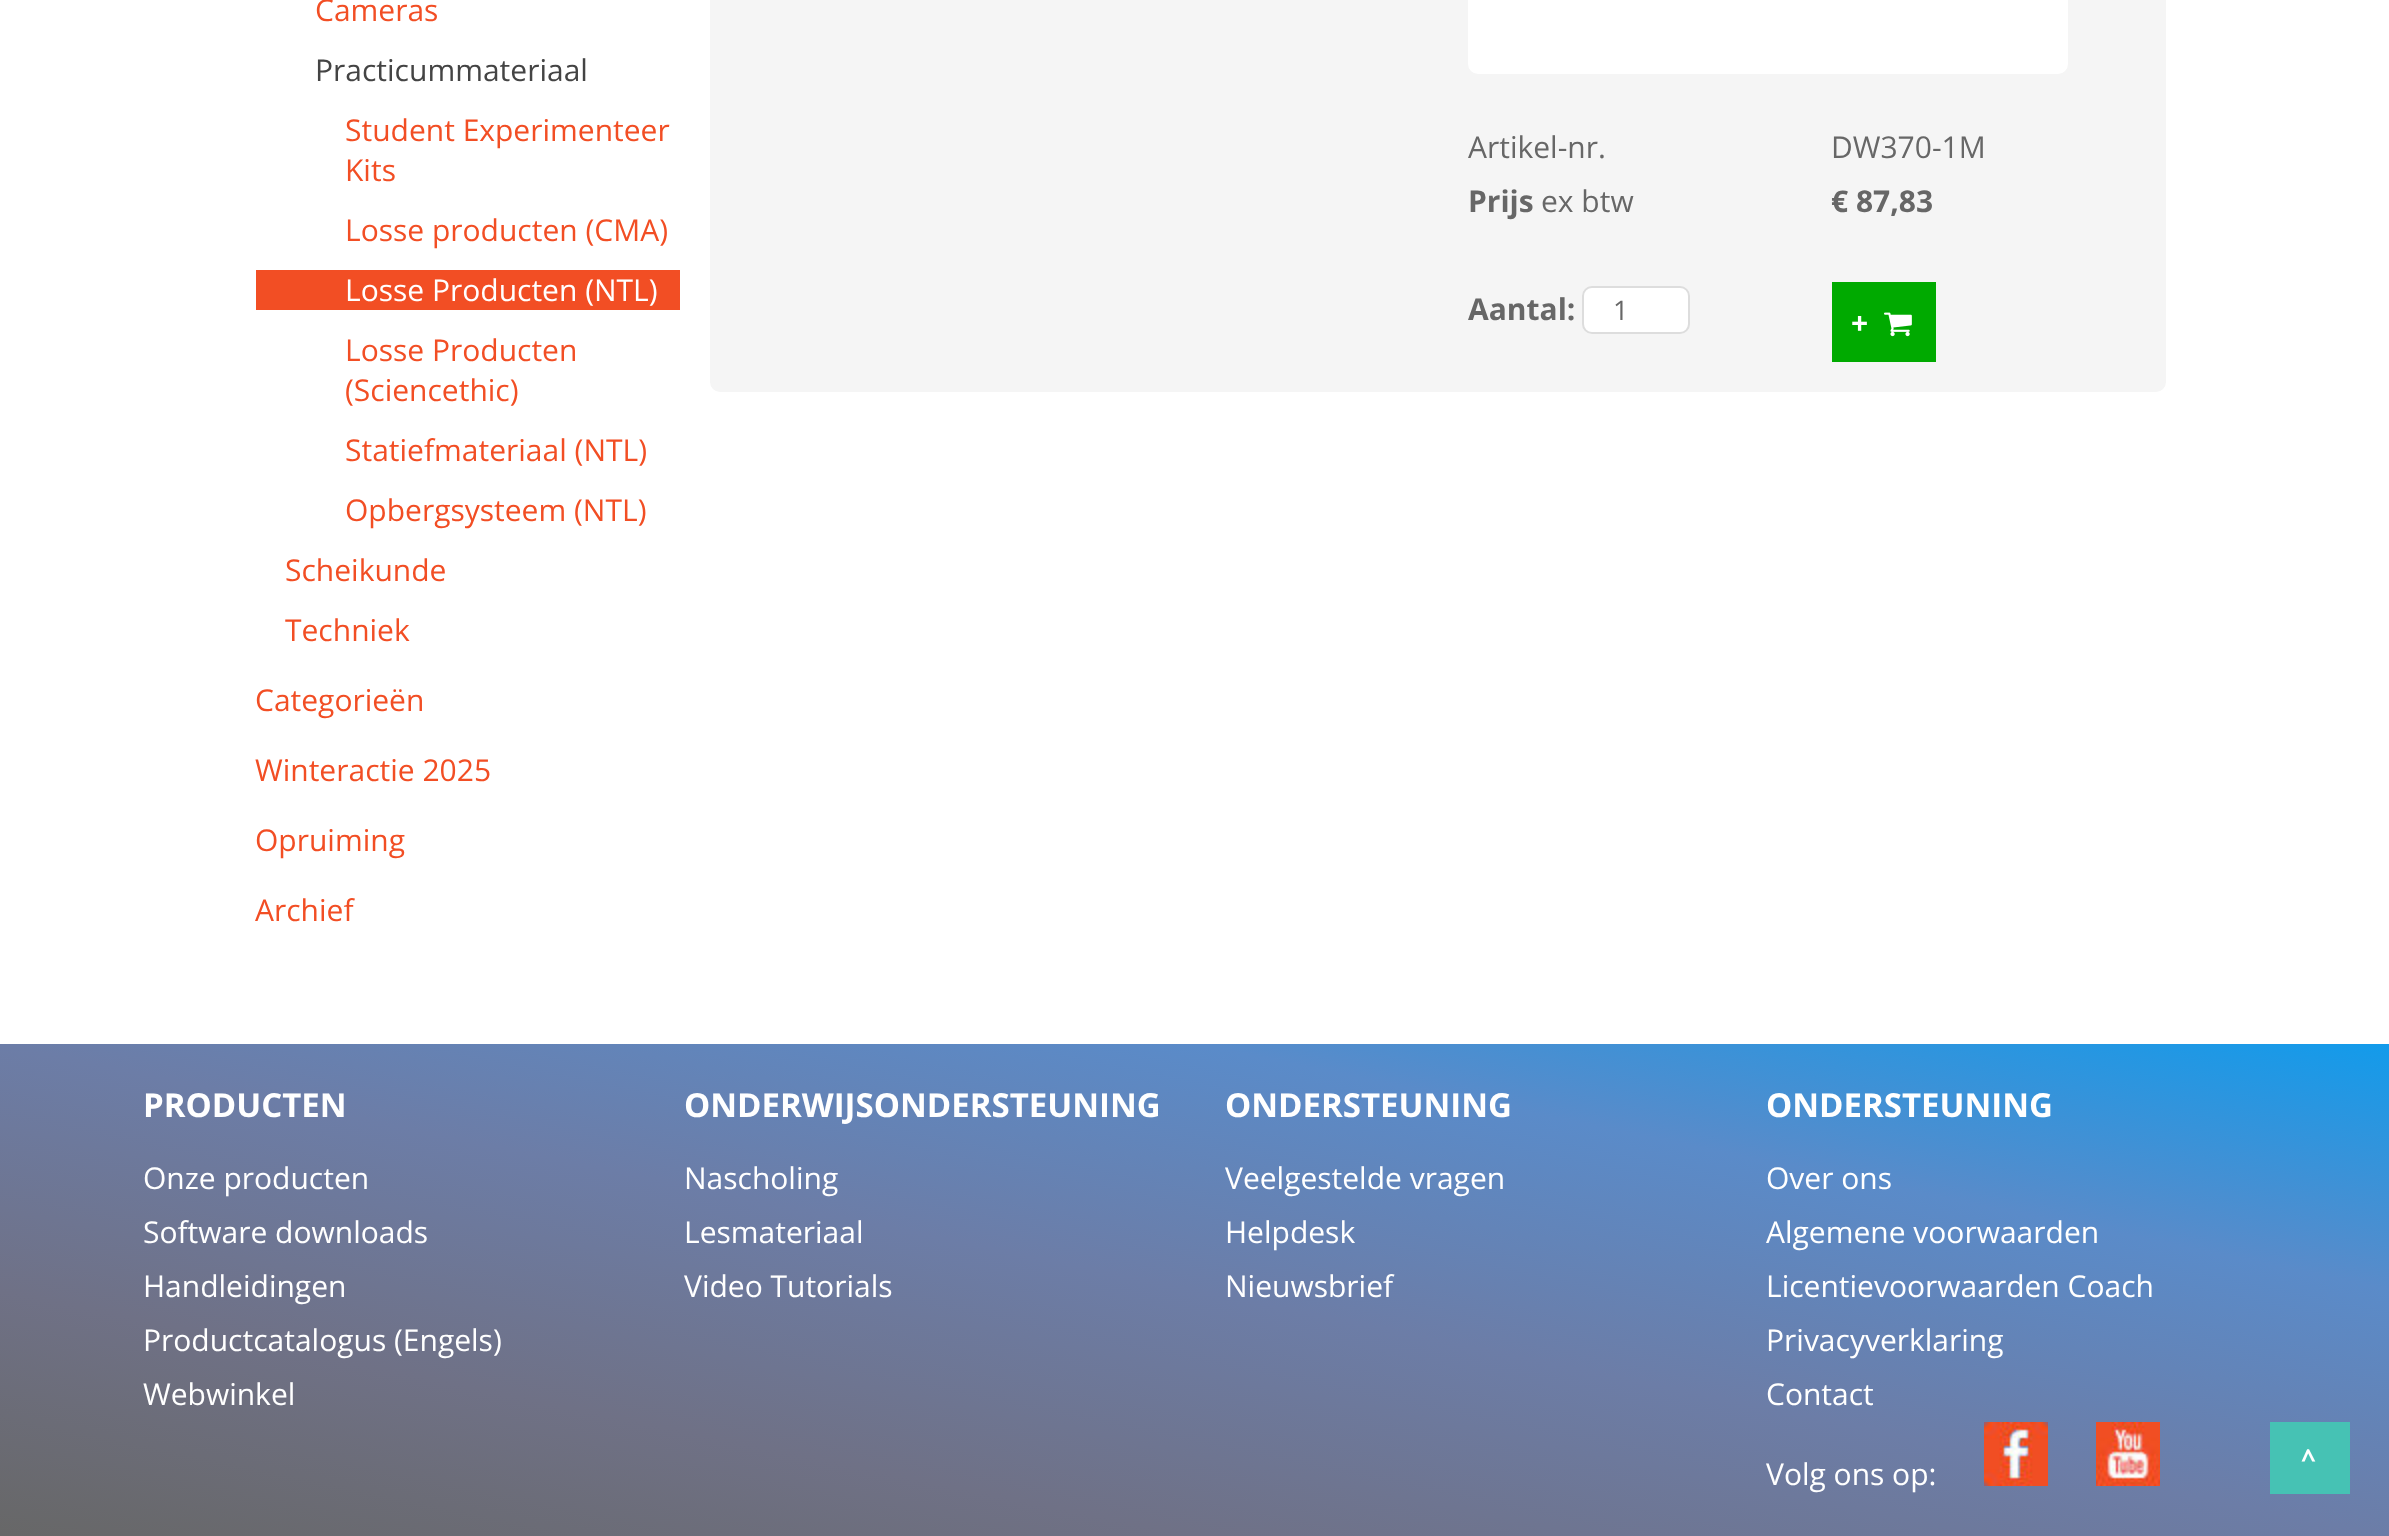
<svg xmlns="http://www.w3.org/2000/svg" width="2389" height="1536">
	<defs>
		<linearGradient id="g1" gradientUnits="userSpaceOnUse" x1="1098" y1="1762" x2="1292" y2="818"><stop offset="0" stop-color="#676767" /><stop offset="0.25" stop-color="#6F7186" /><stop offset="0.5" stop-color="#6C7DA7" /><stop offset="0.75" stop-color="#5A8BC9" /><stop offset="1" stop-color="#129BEB" /></linearGradient>
	</defs>
	<rect width="100%" height="100%" fill="#FFFFFF" />
	<text x="315" y="21" font-family="Open Sans" font-size="30" fill="#F24E24">Cameras</text>
	<text x="315" y="81" font-family="Open Sans" font-size="30" fill="#444444">Practicummateriaal</text>
	<g font-family="Open Sans" font-size="30" fill="#F24E24">
		<text x="345" y="141">Student Experimenteer</text>
		<text x="345" y="181">Kits</text>
		<text x="345" y="241">Losse producten (CMA)</text>
	</g>
	<rect x="256" y="270" width="424" height="40" fill="#F24E24" />
	<text x="345" y="301" font-family="Open Sans" font-size="30" fill="#FFFFFF">Losse Producten (NTL)</text>
	<g font-family="Open Sans" font-size="30" fill="#F24E24">
		<text x="345" y="361">Losse Producten</text>
		<text x="345" y="401">(Sciencethic)</text>
		<text x="345" y="461">Statiefmateriaal (NTL)</text>
		<text x="345" y="521">Opbergsysteem (NTL)</text>
		<text x="285" y="581">Scheikunde</text>
		<text x="285" y="641">Techniek</text>
		<text x="255" y="711">Categorieën</text>
		<text x="255" y="781">Winteractie 2025</text>
		<text x="255" y="851">Opruiming</text>
		<text x="255" y="921">Archief</text>
	</g>
	<rect x="710" y="-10" width="1456" height="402" rx="10" fill="#F5F5F5" />
	<image x="1468" y="0" width="600" height="74" href="assets/img1.png" />
	<g font-family="Open Sans" font-size="30" fill="#676767">
		<text x="1468" y="158">Artikel-nr.</text>
		<text x="1831" y="158">DW370-1M</text>
	</g>
	<text x="1468" y="212" font-family="Open Sans" font-size="30" font-weight="700" fill="#676767">Prijs</text>
	<text x="1541" y="212" font-family="Open Sans" font-size="30" fill="#676767">ex btw</text>
	<g font-family="Open Sans" font-size="30" font-weight="700" fill="#676767">
		<text x="1831" y="212">€ 87,83</text>
		<text x="1468" y="320">Aantal:</text>
	</g>
	<rect x="1583" y="287" width="106" height="46" rx="9" fill="#FFFFFF" stroke="#DDDDDD" stroke-width="2" />
	<text x="1613" y="320" font-family="Open Sans" font-size="27" fill="#676767">1</text>
	<rect x="1832" y="282" width="104" height="80" fill="#00AA00" />
	<text x="1851" y="334" font-family="Open Sans" font-size="30" font-weight="700" letter-spacing="4" fill="#FFFFFF">+</text>
	<image x="1884" y="312" width="28" height="25" href="assets/img2.png" />
	<rect x="0" y="1044" width="2389" height="492" fill="url(#g1)" />
	<text x="143" y="1117" font-family="Open Sans" font-size="33" font-weight="700" fill="#FFFFFF">PRODUCTEN</text>
	<g font-family="Open Sans" font-size="30" fill="#FFFFFF">
		<text x="143" y="1189">Onze producten</text>
		<text x="143" y="1243">Software downloads</text>
		<text x="143" y="1297">Handleidingen</text>
		<text x="143" y="1351">Productcatalogus (Engels)</text>
		<text x="143" y="1405">Webwinkel</text>
	</g>
	<text x="684" y="1117" font-family="Open Sans" font-size="33" font-weight="700" fill="#FFFFFF">ONDERWIJSONDERSTEUNING</text>
	<g font-family="Open Sans" font-size="30" fill="#FFFFFF">
		<text x="684" y="1189">Nascholing</text>
		<text x="684" y="1243">Lesmateriaal</text>
		<text x="684" y="1297">Video Tutorials</text>
	</g>
	<text x="1225" y="1117" font-family="Open Sans" font-size="33" font-weight="700" fill="#FFFFFF">ONDERSTEUNING</text>
	<g font-family="Open Sans" font-size="30" fill="#FFFFFF">
		<text x="1225" y="1189">Veelgestelde vragen</text>
		<text x="1225" y="1243">Helpdesk</text>
		<text x="1225" y="1297">Nieuwsbrief</text>
	</g>
	<text x="1766" y="1117" font-family="Open Sans" font-size="33" font-weight="700" fill="#FFFFFF">ONDERSTEUNING</text>
	<g font-family="Open Sans" font-size="30" fill="#FFFFFF">
		<text x="1766" y="1189">Over ons</text>
		<text x="1766" y="1243">Algemene voorwaarden</text>
		<text x="1766" y="1297">Licentievoorwaarden Coach</text>
		<text x="1766" y="1351">Privacyverklaring</text>
		<text x="1766" y="1405">Contact</text>
		<text x="1766" y="1485">Volg ons op:</text>
	</g>
	<image x="1984" y="1422" width="64" height="64" href="assets/img3.png" />
	<image x="2096" y="1422" width="64" height="64" href="assets/img4.png" />
	<rect x="2270" y="1422" width="80" height="72" fill="#46C2B4" />
	<text x="2301" y="1468" font-family="Open Sans" font-size="26" font-weight="700" letter-spacing="2" fill="#FFFFFF">^</text>
</svg>
